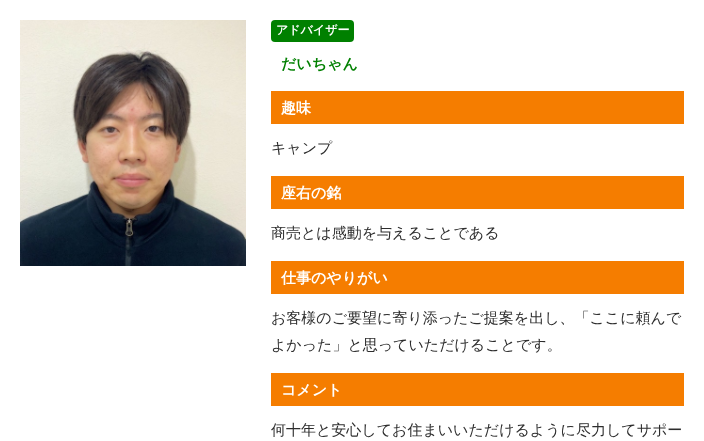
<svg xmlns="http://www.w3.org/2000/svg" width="704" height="441">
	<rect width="100%" height="100%" fill="#FFFFFF" />
	<image x="20" y="20" width="226" height="246" href="assets/img1.png" />
	<rect x="271" y="20" width="83" height="22" rx="4" fill="#008000" />
	<text x="276" y="34" font-family="WenQuanYi Zen Hei" font-size="12" font-weight="700" fill="#FFFFFF">アドバイザー</text>
	<text x="281" y="69" font-family="WenQuanYi Zen Hei" font-size="15" font-weight="700" fill="#008000">だいちゃん</text>
	<rect x="271" y="91" width="413" height="33" fill="#F57D00" />
	<text x="281" y="113" font-family="WenQuanYi Zen Hei" font-size="15" font-weight="700" fill="#FFFFFF">趣味</text>
	<text x="271" y="153" font-family="WenQuanYi Zen Hei" font-size="15" font-weight="500" fill="#2D2D2D">キャンプ</text>
	<rect x="271" y="176" width="413" height="33" fill="#F57D00" />
	<text x="281" y="198" font-family="WenQuanYi Zen Hei" font-size="15" font-weight="700" fill="#FFFFFF">座右の銘</text>
	<text x="271" y="238" font-family="WenQuanYi Zen Hei" font-size="15" font-weight="500" fill="#2D2D2D">商売とは感動を与えることである</text>
	<rect x="271" y="261" width="413" height="33" fill="#F57D00" />
	<text x="281" y="283" font-family="WenQuanYi Zen Hei" font-size="15" font-weight="700" fill="#FFFFFF">仕事のやりがい</text>
	<g font-family="WenQuanYi Zen Hei" font-size="15" font-weight="500" fill="#2D2D2D">
		<text x="271" y="323">お客様のご要望に寄り添ったご提案を出し、「ここに頼んで</text>
		<text x="271" y="350">よかった」と思っていただけることです。</text>
	</g>
	<rect x="271" y="373" width="413" height="33" fill="#F57D00" />
	<text x="281" y="395" font-family="WenQuanYi Zen Hei" font-size="15" font-weight="700" fill="#FFFFFF">コメント</text>
	<text x="271" y="435" font-family="WenQuanYi Zen Hei" font-size="15" font-weight="500" fill="#2D2D2D">何⼗年と安⼼してお住まいいただけるように尽⼒してサポー</text>
</svg>
